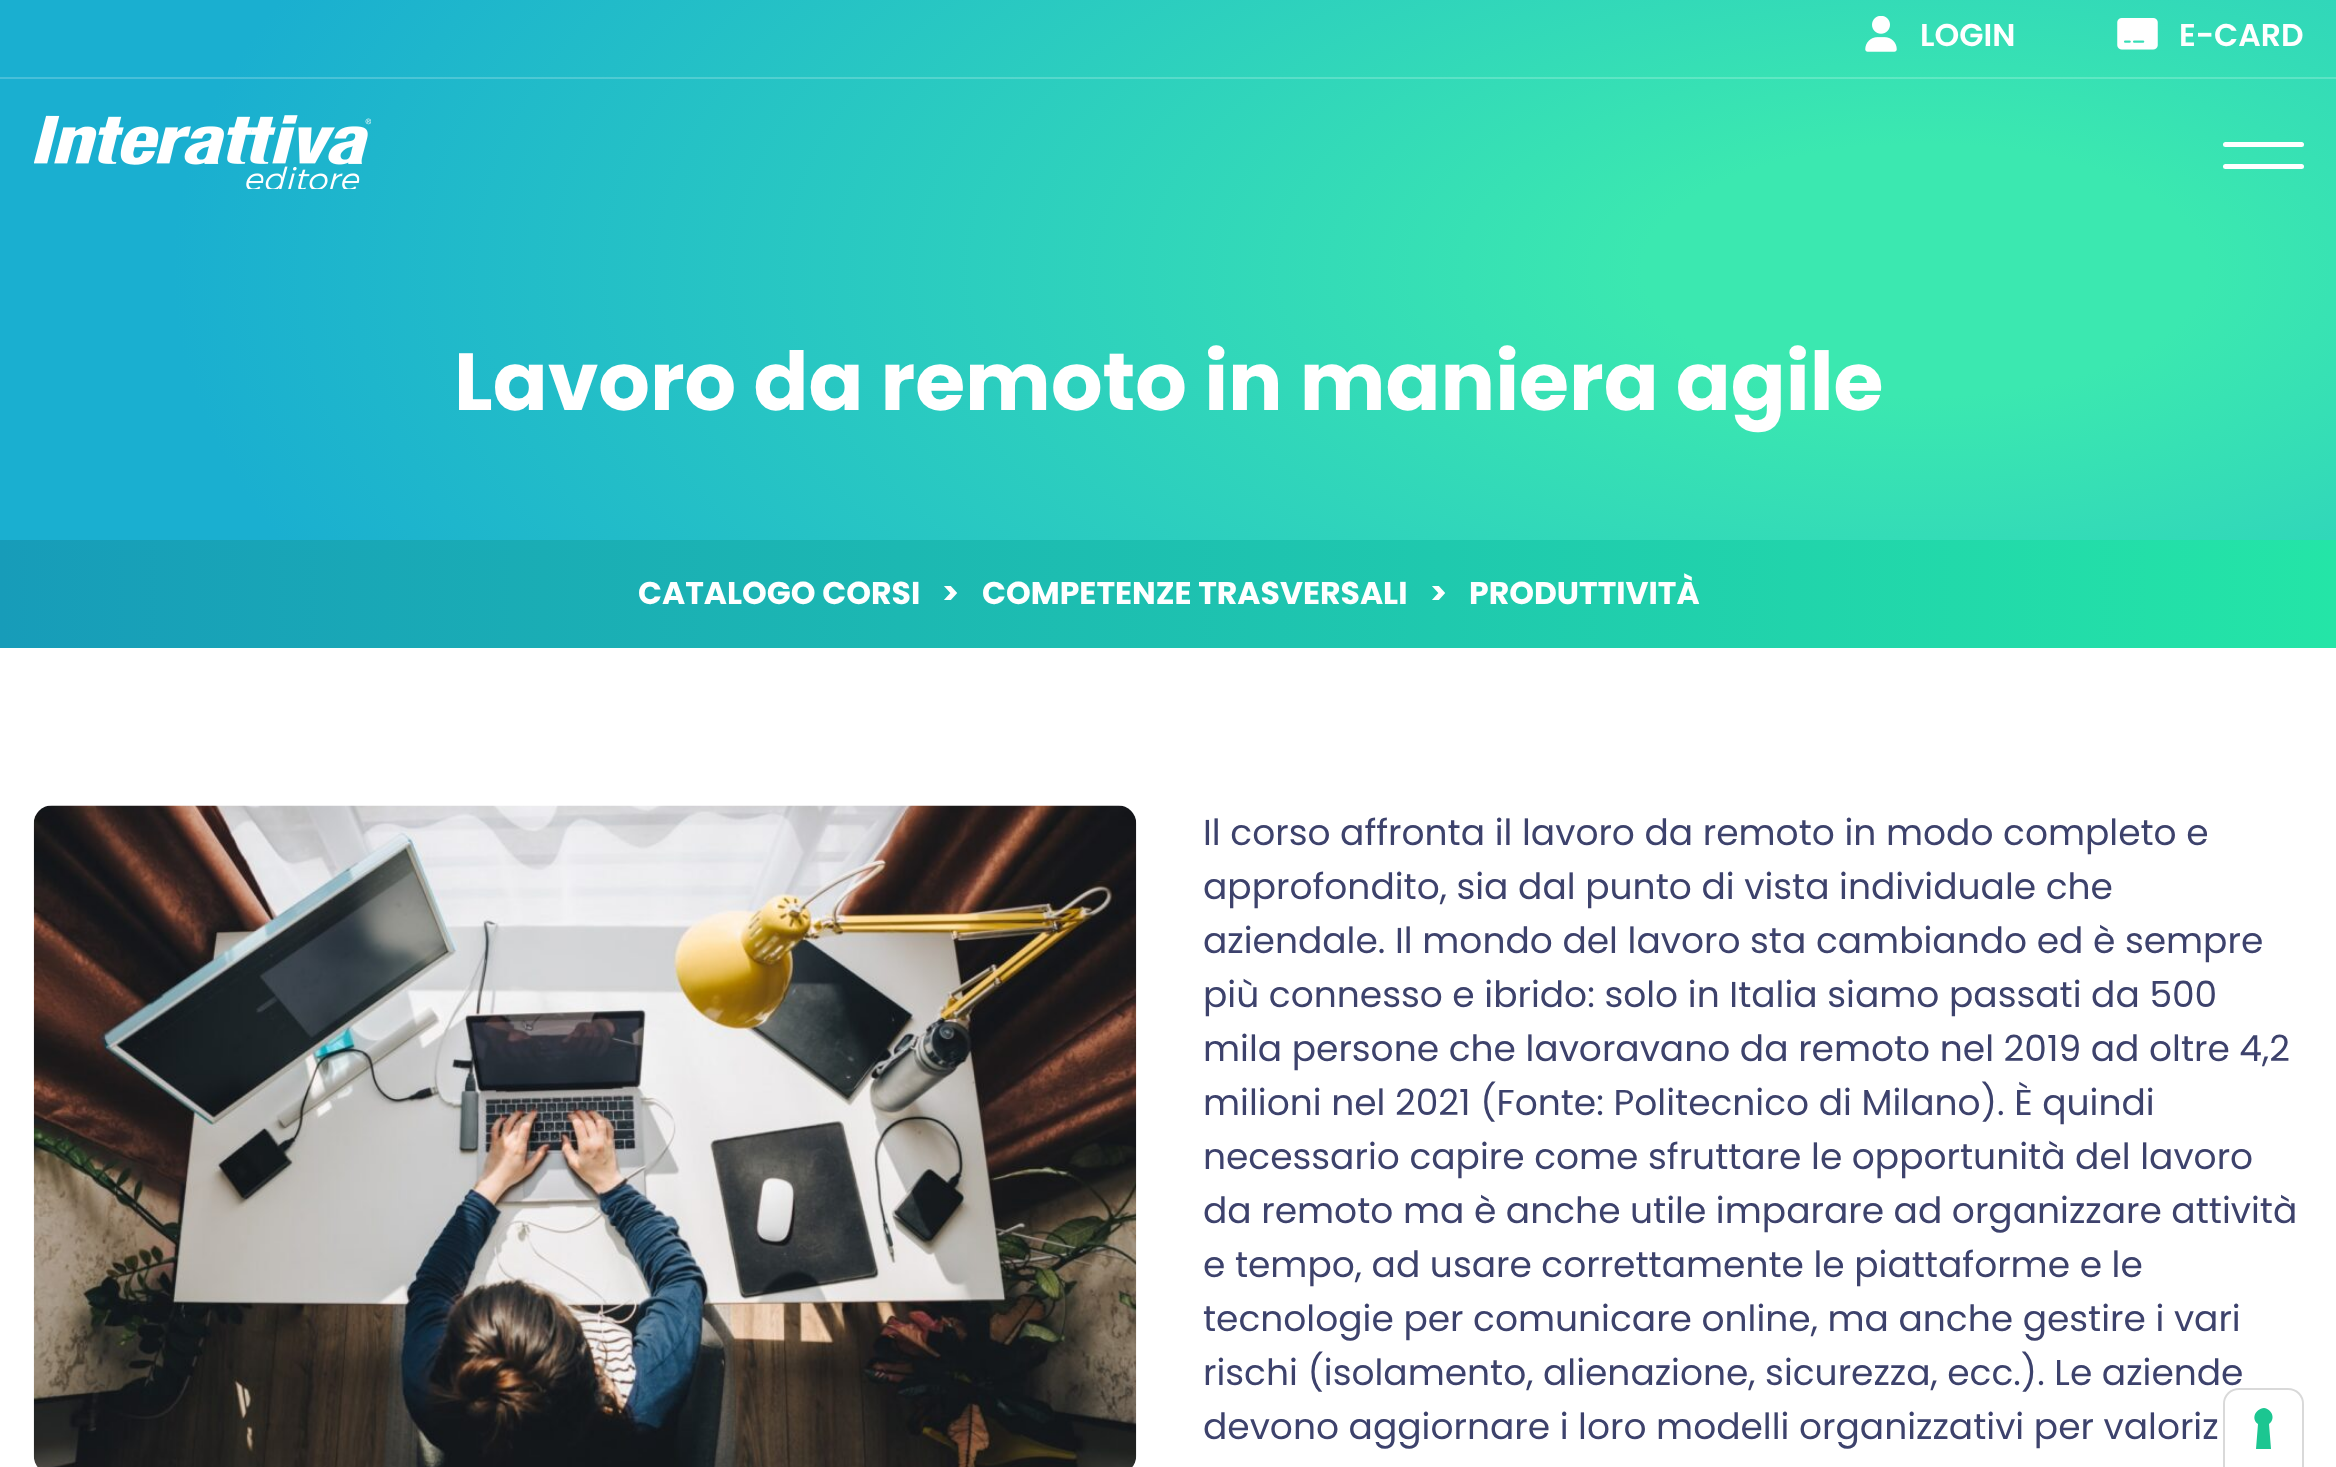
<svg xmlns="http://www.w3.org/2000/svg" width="2336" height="1467">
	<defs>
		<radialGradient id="g1" gradientUnits="userSpaceOnUse" cx="0" cy="0" r="1" gradientTransform="matrix(1752 0 0 787 1924 270)"><stop offset="0.16" stop-color="#3BE8B0" /><stop offset="1" stop-color="#1AAFD0" /></radialGradient>
		<radialGradient id="g2" gradientUnits="userSpaceOnUse" cx="0" cy="0" r="1" gradientTransform="matrix(1752 0 0 787 1924 270)"><stop offset="0.16" stop-color="#62EDC0" /><stop offset="1" stop-color="#48BFD9" /></radialGradient>
		<linearGradient id="g3" gradientUnits="userSpaceOnUse" x1="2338" y1="594" x2="0" y2="594"><stop offset="0" stop-color="#24E5A7" /><stop offset="1" stop-color="#179CB9" /></linearGradient>
	</defs>
	<rect width="100%" height="100%" fill="#FFFFFF" />
	<rect x="0" y="0" width="2336" height="540" fill="url(#g1)" />
	<image x="1865" y="16" width="32" height="36" href="assets/img1.png" />
	<text x="1920" y="46" font-family="Poppins" font-size="31.5" font-weight="600" fill="#FFFFFF">LOGIN</text>
	<image x="2117" y="18" width="41" height="32" href="assets/img2.png" />
	<text x="2179" y="46" font-family="Poppins" font-size="31.5" font-weight="600" fill="#FFFFFF">E-CARD</text>
	<image x="34" y="115" width="337" height="74" href="assets/img3.png" />
	<rect x="2223" y="142" width="81" height="5" rx="2.5" fill="#FFFFFF" />
	<rect x="2223" y="164" width="81" height="5" rx="2.5" fill="#FFFFFF" />
	<rect x="0" y="77" width="2336" height="2" fill="url(#g2)" />
	<text x="454" y="410" font-family="Poppins" font-size="81" font-weight="700" fill="#FFFFFF">Lavoro da remoto in maniera agile</text>
	<rect x="0" y="540" width="2336" height="108" fill="url(#g3)" />
	<g font-family="Poppins" font-size="31.5" font-weight="700" fill="#FFFFFF">
		<text x="638" y="604">CATALOGO CORSI</text>
		<text x="942" y="604">&gt;</text>
		<text x="982" y="604">COMPETENZE TRASVERSALI</text>
		<text x="1430" y="604">&gt;</text>
		<text x="1469" y="604">PRODUTTIVITÀ</text>
	</g>
	<image x="33" y="805" width="1104" height="662" href="assets/img4.png" />
	<g font-family="Poppins" font-size="36" fill="#3D426C">
		<text x="1203" y="845">Il corso affronta il lavoro da remoto in modo completo e</text>
		<text x="1203" y="899">approfondito, sia dal punto di vista individuale che</text>
		<text x="1203" y="953">aziendale. Il mondo del lavoro sta cambiando ed è sempre</text>
		<text x="1203" y="1007">più connesso e ibrido: solo in Italia siamo passati da 500</text>
		<text x="1203" y="1061">mila persone che lavoravano da remoto nel 2019 ad oltre 4,2</text>
		<text x="1203" y="1115">milioni nel 2021 (Fonte: Politecnico di Milano). È quindi</text>
		<text x="1203" y="1169">necessario capire come sfruttare le opportunità del lavoro</text>
		<text x="1203" y="1223">da remoto ma è anche utile imparare ad organizzare attività</text>
		<text x="1203" y="1277">e tempo, ad usare correttamente le piattaforme e le</text>
		<text x="1203" y="1331">tecnologie per comunicare online, ma anche gestire i vari</text>
		<text x="1203" y="1385">rischi (isolamento, alienazione, sicurezza, ecc.). Le aziende</text>
		<text x="1203" y="1439">devono aggiornare i loro modelli organizzativi per valoriz</text>
	</g>
	<path d="M2239 1389H2288C2296.5 1389 2303 1395.5 2303 1404V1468H2224V1404C2224 1395.5 2230.5 1389 2239 1389Z" fill="none" stroke="#000000" stroke-opacity="0.15" stroke-width="2" />
	<path d="M2239 1391H2288C2295.5 1391 2302 1397.5 2302 1405V1467H2225V1405C2225 1397.5 2231.5 1391 2239 1391Z" fill="#FFFFFF" />
	<path d="M2264 1408C2272 1409 2276 1419 2269 1424L2271 1449H2256L2258 1424C2251 1419 2255 1409 2264 1408Z" fill="#1CC691" fill-rule="evenodd" />
</svg>
